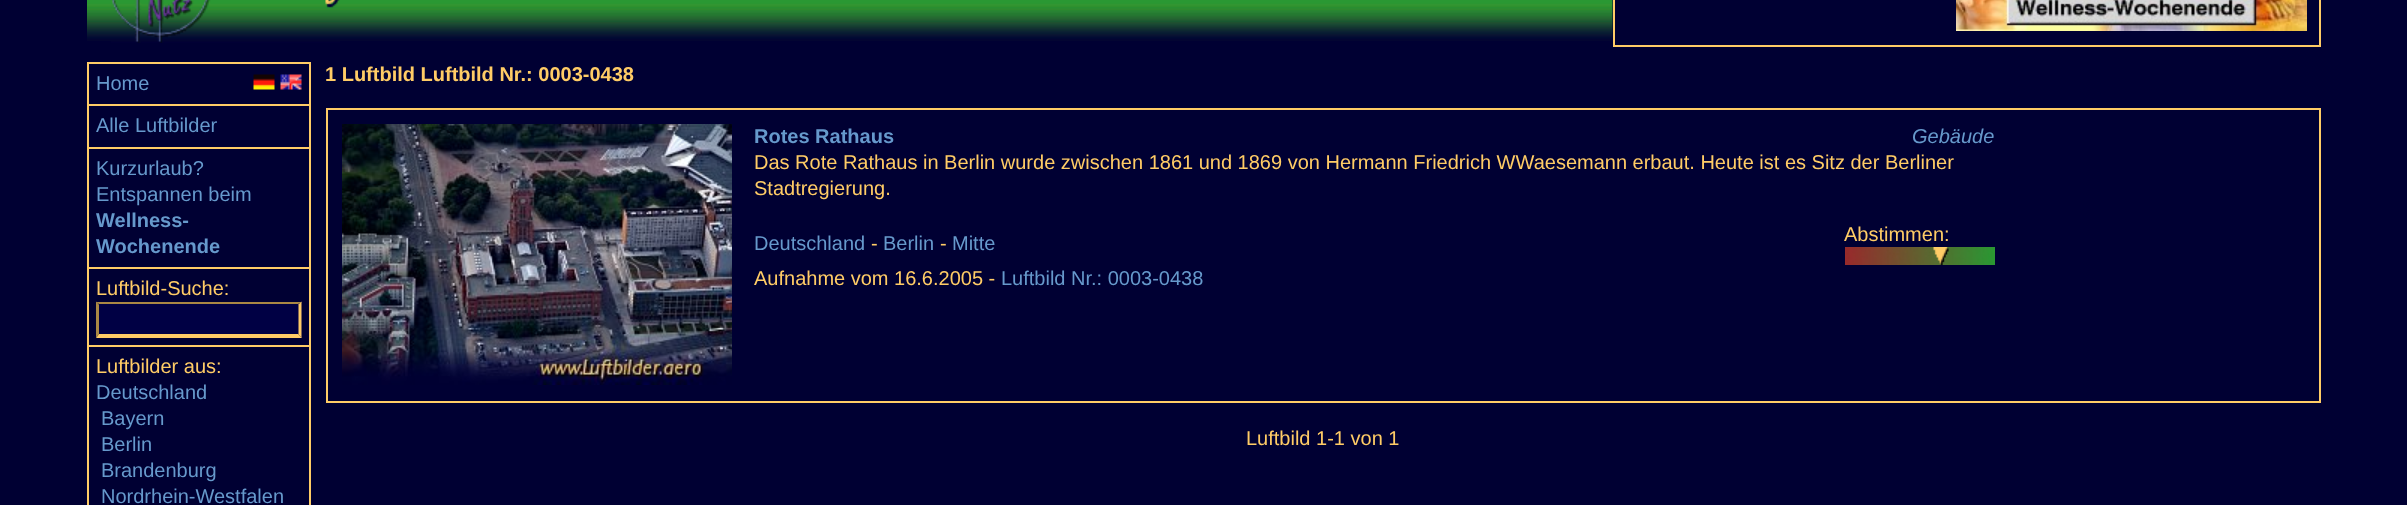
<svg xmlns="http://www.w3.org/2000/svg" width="2407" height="505">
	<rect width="100%" height="100%" fill="#000033" />
	<image x="87" y="0" width="1526" height="41" href="assets/img1.png" />
	<image x="111" y="0" width="229" height="43" href="assets/img2.png" />
	<rect x="2319" y="0" width="2" height="47" fill="#FFCC66" />
	<rect x="1613" y="45" width="708" height="2" fill="#FFCC66" />
	<rect x="1613" y="0" width="2" height="47" fill="#FFCC66" />
	<image x="1956" y="0" width="351" height="31" href="assets/img3.png" />
	<rect x="87" y="62" width="224" height="2" fill="#FFCC66" />
	<rect x="309" y="62" width="2" height="443" fill="#FFCC66" />
	<rect x="87" y="62" width="2" height="443" fill="#FFCC66" />
	<text x="96" y="90" font-family="Liberation Sans" font-size="20" fill="#6699CC">Home</text>
	<image x="253" y="74" width="22" height="16" href="assets/img4.png" />
	<image x="280" y="74" width="22" height="16" href="assets/img5.png" />
	<rect x="87" y="104" width="224" height="2" fill="#FFCC66" />
	<text x="96" y="132" font-family="Liberation Sans" font-size="20" fill="#6699CC">Alle Luftbilder</text>
	<rect x="87" y="147" width="224" height="2" fill="#FFCC66" />
	<g font-family="Liberation Sans" font-size="20" fill="#6699CC">
		<text x="96" y="175">Kurzurlaub?</text>
		<text x="96" y="201">Entspannen beim</text>
	</g>
	<g font-family="Liberation Sans" font-size="20" font-weight="700" fill="#6699CC">
		<text x="96" y="227">Wellness-</text>
		<text x="96" y="253">Wochenende</text>
	</g>
	<rect x="87" y="267" width="224" height="2" fill="#FFCC66" />
	<text x="96" y="295" font-family="Liberation Sans" font-size="20" fill="#FFCC66">Luftbild-Suche:</text>
	<rect x="96" y="302" width="206" height="36" fill="#000044" />
	<path d="M96 302H302L298 304H99Z" fill="#AA8844" />
	<path d="M301.5 301.5V337.5L298.5 334.5V304.5Z" fill="#FFCC66" />
	<path d="M302 338H96L99 334H298Z" fill="#FFCC66" />
	<path d="M96 337.5V301.5L99 304.5V334.5Z" fill="#AA8844" />
	<rect x="87" y="345" width="224" height="2" fill="#FFCC66" />
	<text x="96" y="373" font-family="Liberation Sans" font-size="20" fill="#FFCC66">Luftbilder aus:</text>
	<g font-family="Liberation Sans" font-size="20" fill="#6699CC">
		<text x="96" y="399">Deutschland</text>
		<text x="101" y="425">Bayern</text>
		<text x="101" y="451">Berlin</text>
		<text x="101" y="477">Brandenburg</text>
		<text x="101" y="503">Nordrhein-Westfalen</text>
	</g>
	<text x="325" y="81" font-family="Liberation Sans" font-size="20" font-weight="700" fill="#FFCC66">1 Luftbild Luftbild Nr.: 0003-0438</text>
	<rect x="326" y="108" width="1995" height="2" fill="#FFCC66" />
	<rect x="2319" y="108" width="2" height="294" fill="#FFCC66" />
	<rect x="326" y="401" width="1995" height="2" fill="#FFCC66" />
	<rect x="326" y="108" width="2" height="294" fill="#FFCC66" />
	<image x="342" y="124" width="390" height="261" href="assets/img6.png" />
	<text x="754" y="143" font-family="Liberation Sans" font-size="20" font-weight="700" fill="#6699CC">Rotes Rathaus</text>
	<text x="1912" y="143" font-family="Liberation Sans" font-size="20" font-style="italic" fill="#6699CC">Gebäude</text>
	<g font-family="Liberation Sans" font-size="20" fill="#FFCC66">
		<text x="754" y="169">Das Rote Rathaus in Berlin wurde zwischen 1861 und 1869 von Hermann Friedrich WWaesemann erbaut. Heute ist es Sitz der Berliner</text>
		<text x="754" y="195">Stadtregierung.</text>
	</g>
	<text x="754" y="250" font-family="Liberation Sans" font-size="20" fill="#6699CC">Deutschland</text>
	<text x="871" y="250" font-family="Liberation Sans" font-size="20" fill="#FFCC66">-</text>
	<text x="883" y="250" font-family="Liberation Sans" font-size="20" fill="#6699CC">Berlin</text>
	<text x="940" y="250" font-family="Liberation Sans" font-size="20" fill="#FFCC66">-</text>
	<text x="952" y="250" font-family="Liberation Sans" font-size="20" fill="#6699CC">Mitte</text>
	<text x="1844" y="241" font-family="Liberation Sans" font-size="20" fill="#FFCC66">Abstimmen:</text>
	<image x="1845" y="247" width="150" height="18" href="assets/img7.png" />
	<image x="1933" y="247" width="16" height="18" href="assets/img8.png" />
	<text x="754" y="285" font-family="Liberation Sans" font-size="20" fill="#FFCC66">Aufnahme vom 16.6.2005 -</text>
	<text x="1001" y="285" font-family="Liberation Sans" font-size="20" fill="#6699CC">Luftbild Nr.: 0003-0438</text>
	<text x="1246" y="445" font-family="Liberation Sans" font-size="20" fill="#FFCC66">Luftbild 1-1 von 1</text>
</svg>
